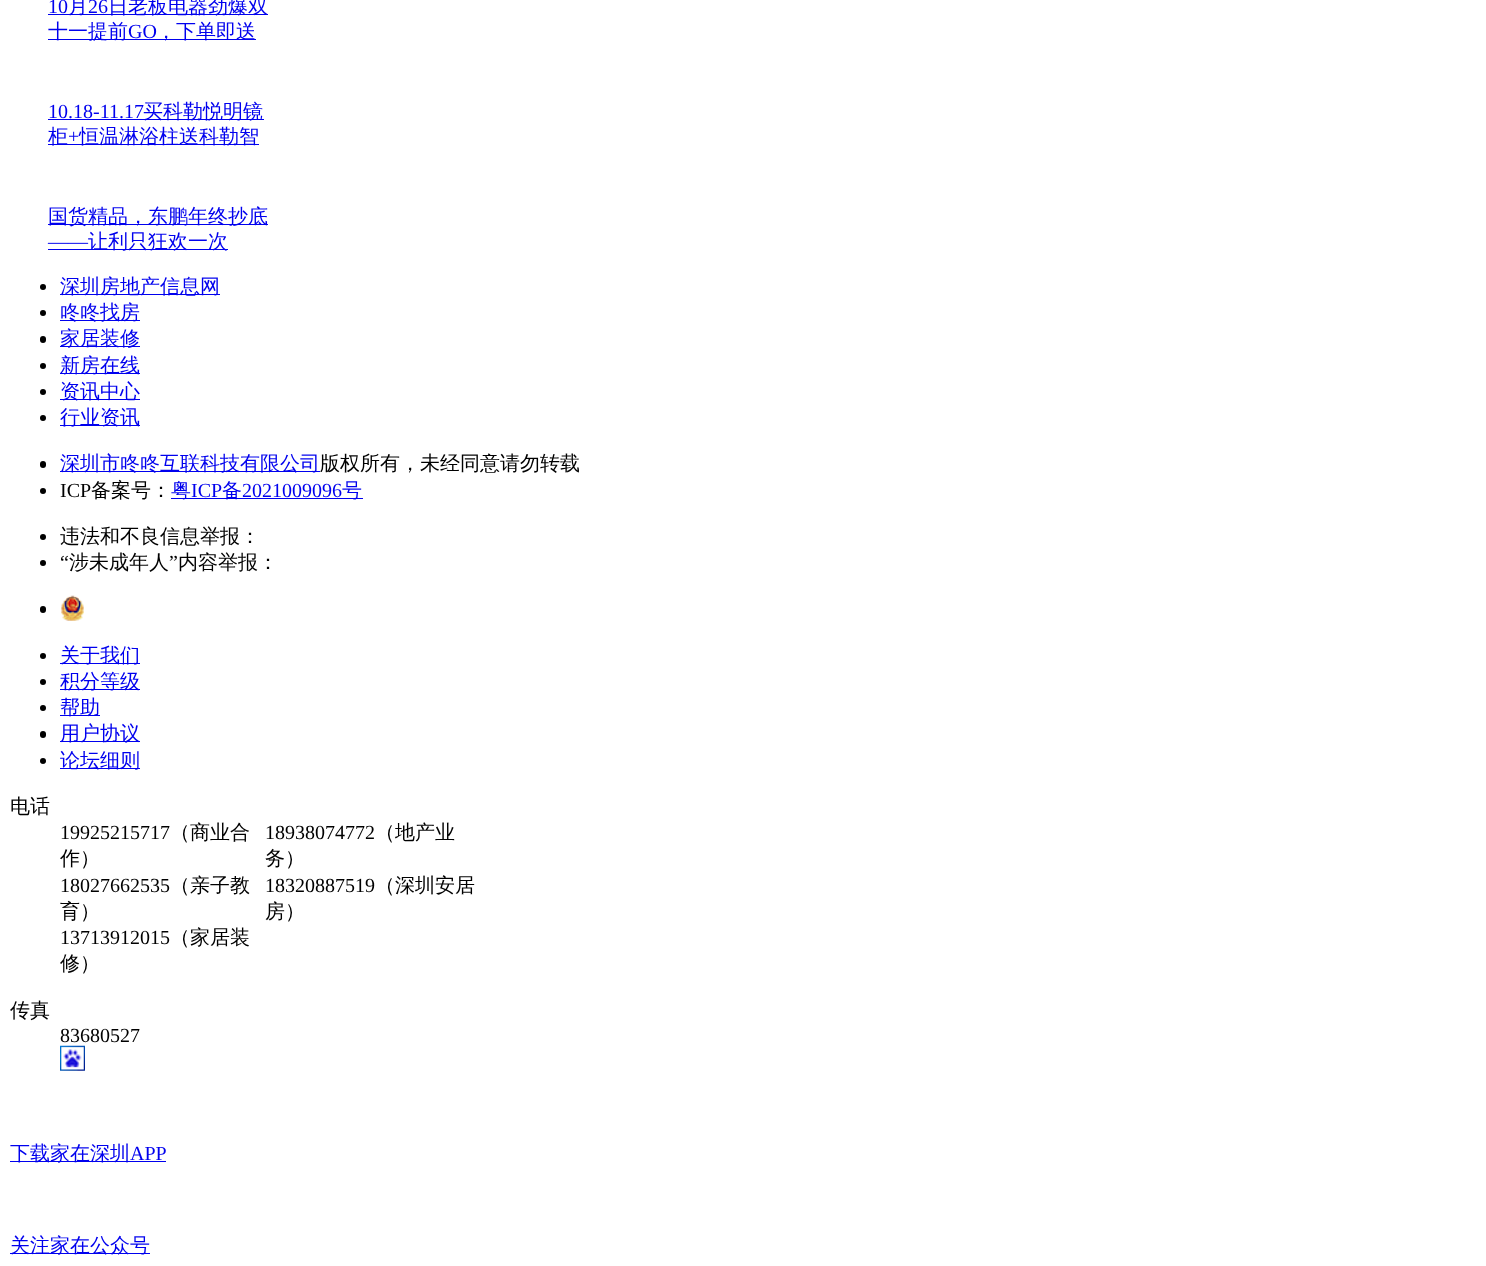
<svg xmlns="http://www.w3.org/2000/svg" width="1486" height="1266">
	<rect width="100%" height="100%" fill="#FFFFFF" />
	<text x="48" y="13" font-family="Liberation Serif" font-size="20" fill="#0000EE">10</text>
	<rect x="48" y="14" width="220" height="1" fill="#0000EE" />
	<text x="68" y="13" font-family="WenQuanYi Zen Hei" font-size="20" font-weight="500" fill="#0000EE">月</text>
	<text x="88" y="13" font-family="Liberation Serif" font-size="20" fill="#0000EE">26</text>
	<text x="108" y="13" font-family="WenQuanYi Zen Hei" font-size="20" font-weight="500" fill="#0000EE">日老板电器劲爆双</text>
	<rect x="48" y="39" width="208" height="1" fill="#0000EE" />
	<text x="48" y="38" font-family="WenQuanYi Zen Hei" font-size="20" font-weight="500" fill="#0000EE">十一提前</text>
	<text x="128" y="38" font-family="Liberation Serif" font-size="20" fill="#0000EE">GO</text>
	<text x="156" y="38" font-family="WenQuanYi Zen Hei" font-size="20" font-weight="500" fill="#0000EE">，下单即送</text>
	<text x="48" y="118" font-family="Liberation Serif" font-size="20" fill="#0000EE">10.18-11.17</text>
	<rect x="48" y="119" width="216" height="1" fill="#0000EE" />
	<text x="143" y="118" font-family="WenQuanYi Zen Hei" font-size="20" font-weight="500" fill="#0000EE">买科勒悦明镜</text>
	<rect x="48" y="144" width="211" height="1" fill="#0000EE" />
	<text x="48" y="143" font-family="WenQuanYi Zen Hei" font-size="20" font-weight="500" fill="#0000EE">柜</text>
	<text x="68" y="143" font-family="Liberation Serif" font-size="20" fill="#0000EE">+</text>
	<text x="79" y="143" font-family="WenQuanYi Zen Hei" font-size="20" font-weight="500" fill="#0000EE">恒温淋浴柱送科勒智</text>
	<rect x="48" y="224" width="220" height="1" fill="#0000EE" />
	<text x="48" y="223" font-family="WenQuanYi Zen Hei" font-size="20" font-weight="500" fill="#0000EE">国货精品，东鹏年终抄底</text>
	<text x="48" y="248" font-family="Liberation Serif" font-size="20" fill="#0000EE">——</text>
	<rect x="48" y="249" width="180" height="1" fill="#0000EE" />
	<text x="88" y="248" font-family="WenQuanYi Zen Hei" font-size="20" font-weight="500" fill="#0000EE">让利只狂欢一次</text>
	<circle cx="43" cy="287" r="3" fill="#000000" />
	<rect x="60" y="294" width="160" height="1" fill="#0000EE" />
	<text x="60" y="293" font-family="WenQuanYi Zen Hei" font-size="20" font-weight="500" fill="#0000EE">深圳房地产信息网</text>
	<circle cx="43" cy="313" r="3" fill="#000000" />
	<rect x="60" y="320" width="80" height="1" fill="#0000EE" />
	<text x="60" y="319" font-family="WenQuanYi Zen Hei" font-size="20" font-weight="500" fill="#0000EE">咚咚找房</text>
	<rect x="40" y="336" width="6" height="7" rx="3" fill="#000000" />
	<rect x="60" y="346" width="80" height="1" fill="#0000EE" />
	<text x="60" y="345" font-family="WenQuanYi Zen Hei" font-size="20" font-weight="500" fill="#0000EE">家居装修</text>
	<circle cx="43" cy="366" r="3" fill="#000000" />
	<rect x="60" y="373" width="80" height="1" fill="#0000EE" />
	<text x="60" y="372" font-family="WenQuanYi Zen Hei" font-size="20" font-weight="500" fill="#0000EE">新房在线</text>
	<circle cx="43" cy="392" r="3" fill="#000000" />
	<rect x="60" y="399" width="80" height="1" fill="#0000EE" />
	<text x="60" y="398" font-family="WenQuanYi Zen Hei" font-size="20" font-weight="500" fill="#0000EE">资讯中心</text>
	<circle cx="43" cy="418" r="3" fill="#000000" />
	<rect x="60" y="425" width="80" height="1" fill="#0000EE" />
	<text x="60" y="424" font-family="WenQuanYi Zen Hei" font-size="20" font-weight="500" fill="#0000EE">行业资讯</text>
	<rect x="40" y="461" width="6" height="7" rx="3" fill="#000000" />
	<rect x="60" y="471" width="260" height="1" fill="#0000EE" />
	<text x="60" y="470" font-family="WenQuanYi Zen Hei" font-size="20" font-weight="500" fill="#0000EE">深圳市咚咚互联科技有限公司</text>
	<text x="320" y="470" font-family="WenQuanYi Zen Hei" font-size="20" font-weight="500" fill="#000000">版权所有，未经同意请勿转载</text>
	<circle cx="43" cy="491" r="3" fill="#000000" />
	<text x="60" y="497" font-family="Liberation Serif" font-size="20" fill="#000000">ICP</text>
	<text x="91" y="497" font-family="WenQuanYi Zen Hei" font-size="20" font-weight="500" fill="#000000">备案号：</text>
	<rect x="171" y="498" width="192" height="1" fill="#0000EE" />
	<text x="171" y="497" font-family="WenQuanYi Zen Hei" font-size="20" font-weight="500" fill="#0000EE">粤</text>
	<text x="191" y="497" font-family="Liberation Serif" font-size="20" fill="#0000EE">ICP</text>
	<text x="222" y="497" font-family="WenQuanYi Zen Hei" font-size="20" font-weight="500" fill="#0000EE">备</text>
	<text x="242" y="497" font-family="Liberation Serif" font-size="20" fill="#0000EE">2021009096</text>
	<text x="342" y="497" font-family="WenQuanYi Zen Hei" font-size="20" font-weight="500" fill="#0000EE">号</text>
	<circle cx="43" cy="537" r="3" fill="#000000" />
	<text x="60" y="543" font-family="WenQuanYi Zen Hei" font-size="20" font-weight="500" fill="#000000">违法和不良信息举报：</text>
	<text x="60" y="569" font-family="Liberation Serif" font-size="20" fill="#000000">“</text>
	<text x="69" y="569" font-family="WenQuanYi Zen Hei" font-size="20" font-weight="500" fill="#000000">涉未成年人</text>
	<text x="169" y="569" font-family="Liberation Serif" font-size="20" fill="#000000">”</text>
	<text x="178" y="569" font-family="WenQuanYi Zen Hei" font-size="20" font-weight="500" fill="#000000">内容举报：</text>
	<circle cx="43" cy="563" r="3" fill="#000000" />
	<rect x="40" y="606" width="6" height="7" rx="3" fill="#000000" />
	<image x="61" y="595" width="23" height="26" href="assets/img1.png" />
	<circle cx="43" cy="656" r="3" fill="#000000" />
	<rect x="60" y="663" width="80" height="1" fill="#0000EE" />
	<text x="60" y="662" font-family="WenQuanYi Zen Hei" font-size="20" font-weight="500" fill="#0000EE">关于我们</text>
	<circle cx="43" cy="682" r="3" fill="#000000" />
	<rect x="60" y="689" width="80" height="1" fill="#0000EE" />
	<text x="60" y="688" font-family="WenQuanYi Zen Hei" font-size="20" font-weight="500" fill="#0000EE">积分等级</text>
	<circle cx="43" cy="708" r="3" fill="#000000" />
	<rect x="60" y="715" width="40" height="1" fill="#0000EE" />
	<text x="60" y="714" font-family="WenQuanYi Zen Hei" font-size="20" font-weight="500" fill="#0000EE">帮助</text>
	<rect x="40" y="731" width="6" height="7" rx="3" fill="#000000" />
	<rect x="60" y="741" width="80" height="1" fill="#0000EE" />
	<text x="60" y="740" font-family="WenQuanYi Zen Hei" font-size="20" font-weight="500" fill="#0000EE">用户协议</text>
	<circle cx="43" cy="761" r="3" fill="#000000" />
	<rect x="60" y="768" width="80" height="1" fill="#0000EE" />
	<text x="60" y="767" font-family="WenQuanYi Zen Hei" font-size="20" font-weight="500" fill="#0000EE">论坛细则</text>
	<text x="10" y="813" font-family="WenQuanYi Zen Hei" font-size="20" font-weight="500" fill="#000000">电话</text>
	<text x="60" y="839" font-family="Liberation Serif" font-size="20" fill="#000000">19925215717</text>
	<g font-family="WenQuanYi Zen Hei" font-size="20" font-weight="500" fill="#000000">
		<text x="170" y="839">（商业合</text>
		<text x="60" y="865">作）</text>
	</g>
	<text x="265" y="839" font-family="Liberation Serif" font-size="20" fill="#000000">18938074772</text>
	<g font-family="WenQuanYi Zen Hei" font-size="20" font-weight="500" fill="#000000">
		<text x="375" y="839">（地产业</text>
		<text x="265" y="865">务）</text>
	</g>
	<text x="60" y="892" font-family="Liberation Serif" font-size="20" fill="#000000">18027662535</text>
	<g font-family="WenQuanYi Zen Hei" font-size="20" font-weight="500" fill="#000000">
		<text x="170" y="892">（亲子教</text>
		<text x="60" y="918">育）</text>
	</g>
	<text x="265" y="892" font-family="Liberation Serif" font-size="20" fill="#000000">18320887519</text>
	<g font-family="WenQuanYi Zen Hei" font-size="20" font-weight="500" fill="#000000">
		<text x="375" y="892">（深圳安居</text>
		<text x="265" y="918">房）</text>
	</g>
	<text x="60" y="944" font-family="Liberation Serif" font-size="20" fill="#000000">13713912015</text>
	<g font-family="WenQuanYi Zen Hei" font-size="20" font-weight="500" fill="#000000">
		<text x="170" y="944">（家居装</text>
		<text x="60" y="970">修）</text>
		<text x="10" y="1017">传真</text>
	</g>
	<text x="60" y="1042" font-family="Liberation Serif" font-size="20" fill="#000000">83680527</text>
	<image x="60" y="1045" width="25" height="26" href="assets/img2.png" />
	<rect x="10" y="1161" width="156" height="1" fill="#0000EE" />
	<text x="10" y="1160" font-family="WenQuanYi Zen Hei" font-size="20" font-weight="500" fill="#0000EE">下载家在深圳</text>
	<text x="130" y="1160" font-family="Liberation Serif" font-size="20" fill="#0000EE">APP</text>
	<rect x="10" y="1253" width="140" height="1" fill="#0000EE" />
	<text x="10" y="1252" font-family="WenQuanYi Zen Hei" font-size="20" font-weight="500" fill="#0000EE">关注家在公众号</text>
</svg>
